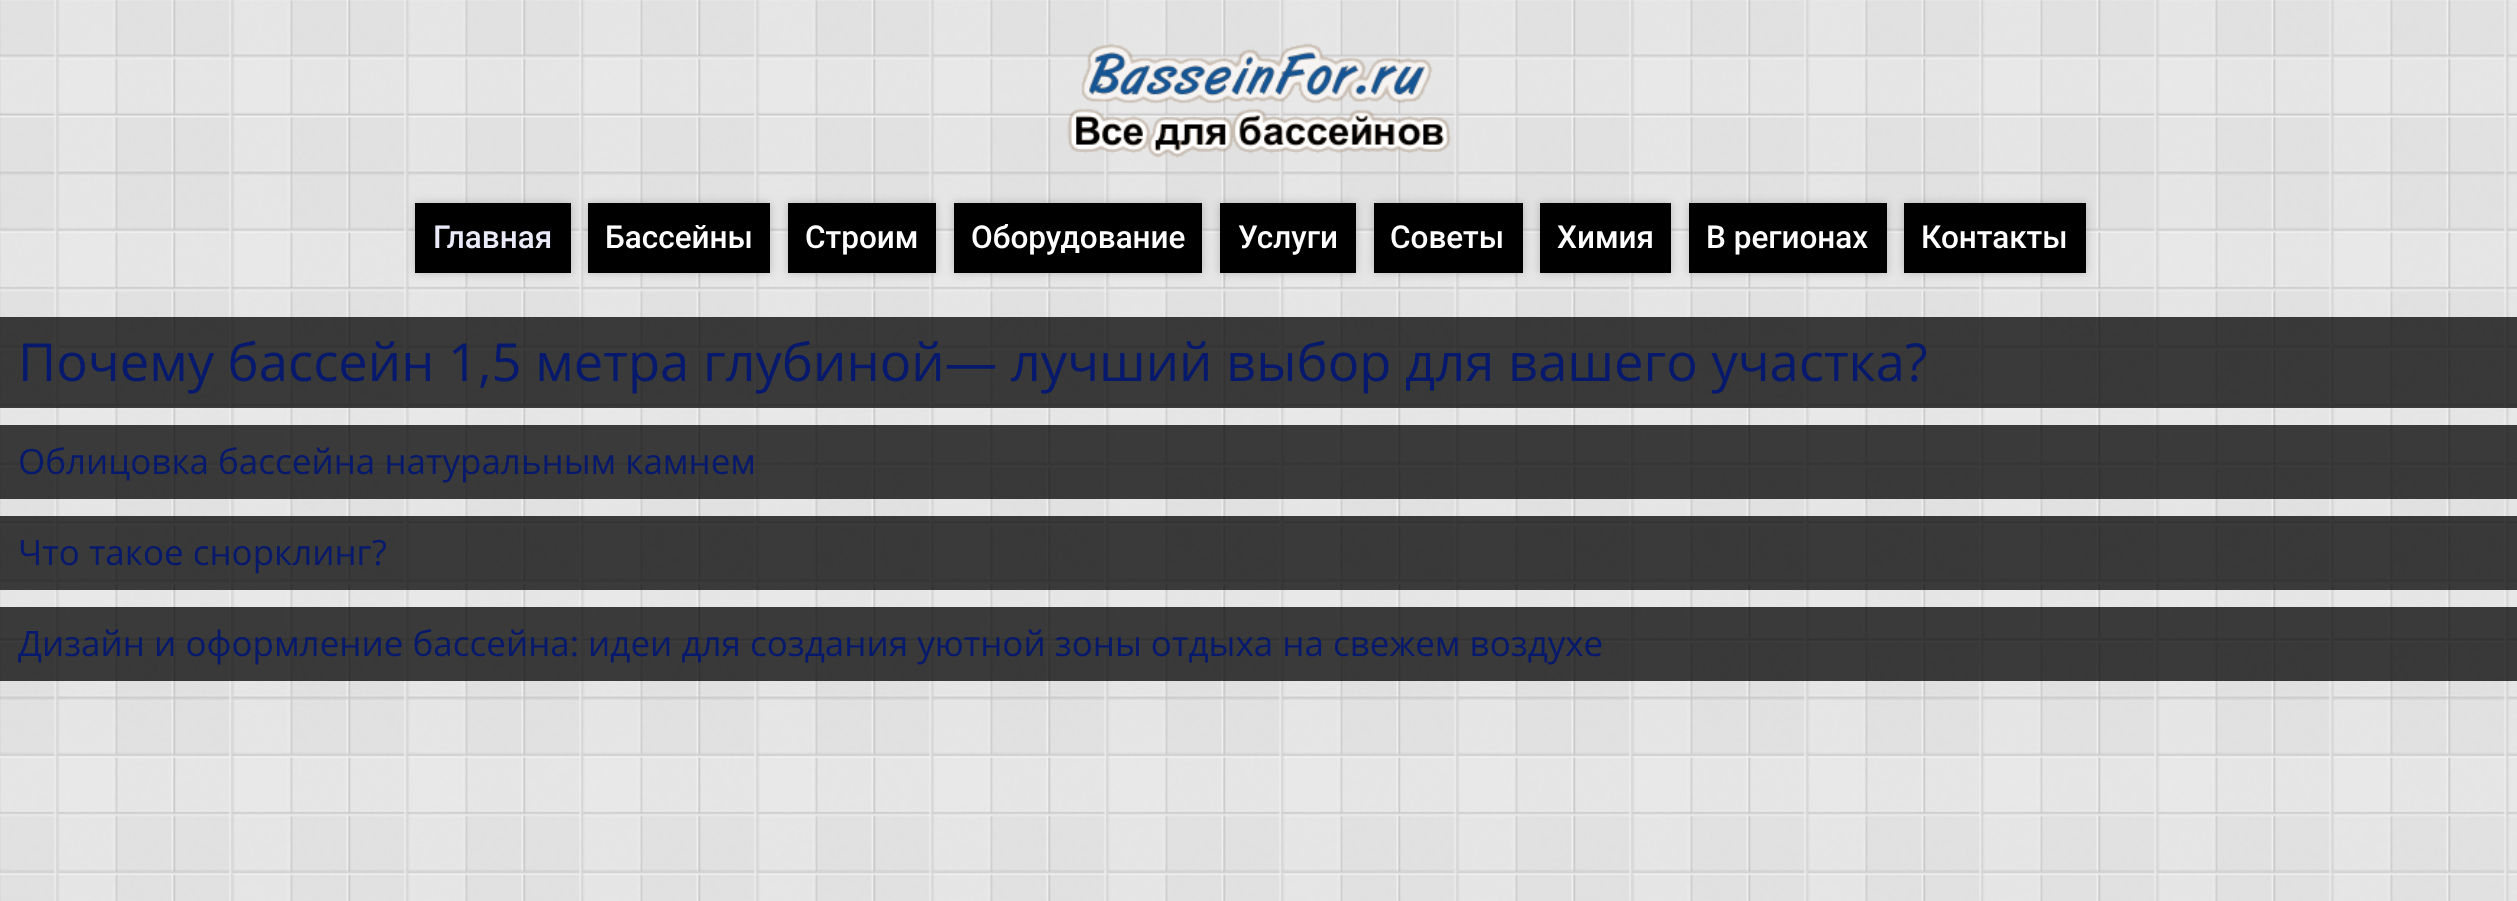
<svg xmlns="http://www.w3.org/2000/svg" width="2517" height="901">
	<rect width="100%" height="100%" fill="#FFFFFF" />
	<image x="0" y="0" width="2517" height="901" href="assets/img1.png" />
	<image x="1067" y="43" width="384" height="115" href="assets/img2.png" />
	<rect x="415" y="203" width="156" height="70" fill="#000000" fill-opacity="0.2" filter="blur(4.5px)" />
	<rect x="415" y="203" width="156" height="70" fill="#000000" />
	<text x="433" y="248" font-family="Roboto" font-size="31.5" font-weight="500" fill="#EAEAF8">Главная</text>
	<rect x="588" y="203" width="182" height="70" fill="#000000" fill-opacity="0.2" filter="blur(4.5px)" />
	<rect x="588" y="203" width="182" height="70" fill="#000000" />
	<text x="605" y="248" font-family="Roboto" font-size="31.5" font-weight="500" fill="#FFFFFF">Бассейны</text>
	<rect x="788" y="203" width="148" height="70" fill="#000000" fill-opacity="0.2" filter="blur(4.5px)" />
	<rect x="788" y="203" width="148" height="70" fill="#000000" />
	<text x="805" y="248" font-family="Roboto" font-size="31.5" font-weight="500" fill="#FFFFFF">Строим</text>
	<rect x="954" y="203" width="248" height="70" fill="#000000" fill-opacity="0.2" filter="blur(4.5px)" />
	<rect x="954" y="203" width="248" height="70" fill="#000000" />
	<text x="971" y="248" font-family="Roboto" font-size="31.5" font-weight="500" fill="#FFFFFF">Оборудование</text>
	<rect x="1220" y="203" width="136" height="70" fill="#000000" fill-opacity="0.2" filter="blur(4.5px)" />
	<rect x="1220" y="203" width="136" height="70" fill="#000000" />
	<text x="1238" y="248" font-family="Roboto" font-size="31.5" font-weight="500" fill="#FFFFFF">Услуги</text>
	<rect x="1374" y="203" width="149" height="70" fill="#000000" fill-opacity="0.2" filter="blur(4.5px)" />
	<rect x="1374" y="203" width="149" height="70" fill="#000000" />
	<text x="1390" y="248" font-family="Roboto" font-size="31.5" font-weight="500" fill="#FFFFFF">Советы</text>
	<rect x="1540" y="203" width="131" height="70" fill="#000000" fill-opacity="0.2" filter="blur(4.5px)" />
	<rect x="1540" y="203" width="131" height="70" fill="#000000" />
	<text x="1557" y="248" font-family="Roboto" font-size="31.5" font-weight="500" fill="#FFFFFF">Химия</text>
	<rect x="1689" y="203" width="198" height="70" fill="#000000" fill-opacity="0.2" filter="blur(4.5px)" />
	<rect x="1689" y="203" width="198" height="70" fill="#000000" />
	<text x="1706" y="248" font-family="Roboto" font-size="31.5" font-weight="500" fill="#FFFFFF">В регионах</text>
	<rect x="1904" y="203" width="182" height="70" fill="#000000" fill-opacity="0.2" filter="blur(4.5px)" />
	<rect x="1904" y="203" width="182" height="70" fill="#000000" />
	<text x="1921" y="248" font-family="Roboto" font-size="31.5" font-weight="500" fill="#FFFFFF">Контакты</text>
	<rect x="0" y="317" width="2517" height="91" fill="#000000" fill-opacity="0.75" />
	<text x="18" y="381" font-family="Open Sans" font-size="52.5" fill="#06196C">Почему бассейн 1,5 метра глубиной— лучший выбор для вашего участка?</text>
	<rect x="0" y="425" width="2517" height="74" fill="#000000" fill-opacity="0.75" />
	<text x="18" y="474" font-family="Open Sans" font-size="35" fill="#06196C">Облицовка бассейна натуральным камнем</text>
	<rect x="0" y="516" width="2517" height="74" fill="#000000" fill-opacity="0.75" />
	<text x="18" y="565" font-family="Open Sans" font-size="35" fill="#06196C">Что такое снорклинг?</text>
	<rect x="0" y="607" width="2517" height="74" fill="#000000" fill-opacity="0.75" />
	<text x="18" y="656" font-family="Open Sans" font-size="35" fill="#06196C">Дизайн и оформление бассейна: идеи для создания уютной зоны отдыха на свежем воздухе</text>
</svg>
